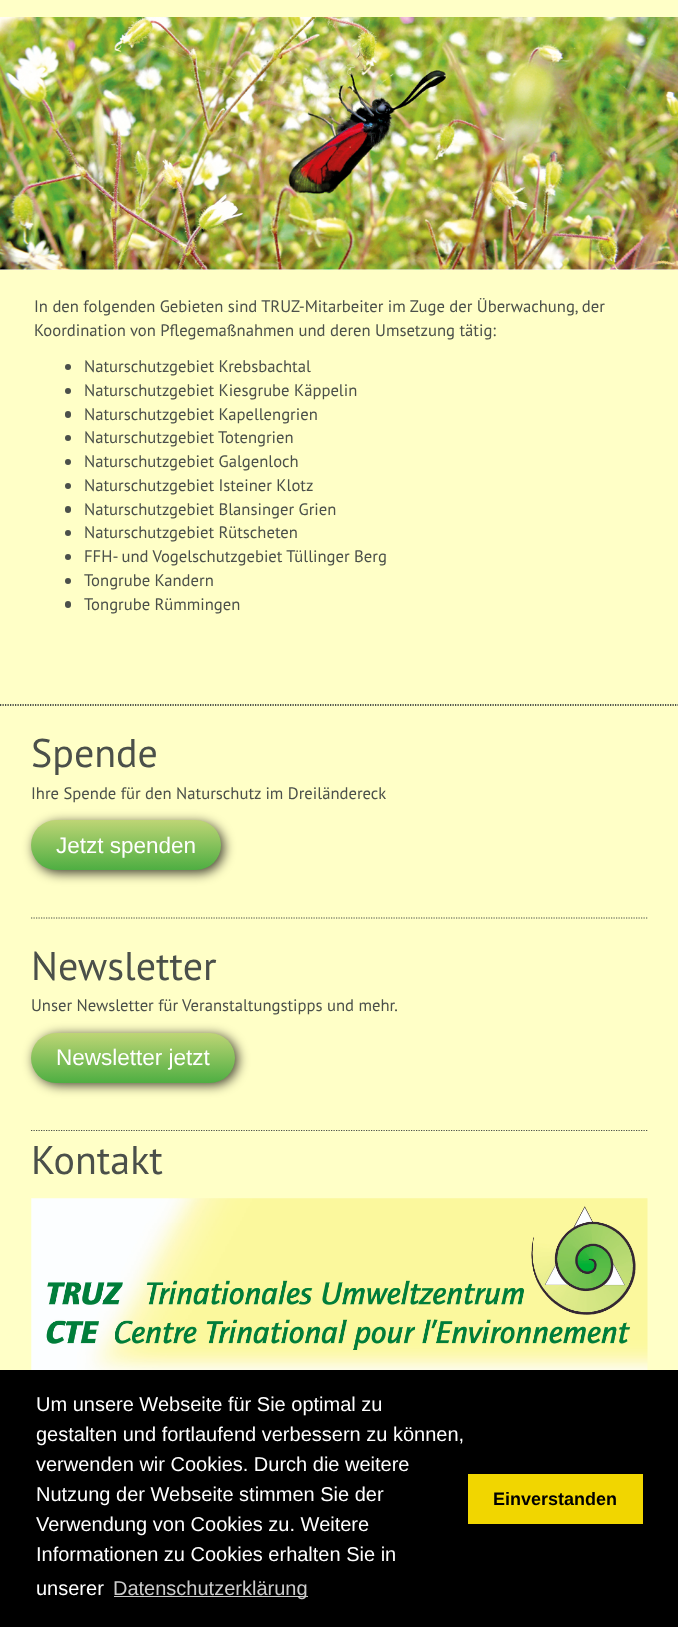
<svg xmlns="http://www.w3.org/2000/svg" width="678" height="1627">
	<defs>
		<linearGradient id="g1" gradientUnits="userSpaceOnUse" x1="126" y1="820" x2="126" y2="870"><stop offset="0" stop-color="#BED575" /><stop offset="1" stop-color="#4EAE42" /></linearGradient>
		<linearGradient id="g2" gradientUnits="userSpaceOnUse" x1="133" y1="1033" x2="133" y2="1083"><stop offset="0" stop-color="#BED575" /><stop offset="1" stop-color="#4EAE42" /></linearGradient>
	</defs>
	<rect width="100%" height="100%" fill="#FFFFFF" />
	<rect x="0" y="0" width="678" height="17" fill="#FFFFC7" />
	<image x="0" y="17" width="678" height="253" href="assets/img1.png" />
	<rect x="0" y="270" width="678" height="1100" fill="#FFFFC7" />
	<g font-family="PT Sans" font-size="16.65" fill="#4B504A">
		<text x="34" y="312">In den folgenden Gebieten sind TRUZ-Mitarbeiter im Zuge der Überwachung, der</text>
		<text x="34" y="336">Koordination von Pflegemaßnahmen und deren Umsetzung tätig:</text>
	</g>
	<circle cx="68" cy="367" r="3" fill="#4B504A" />
	<text x="84" y="372" font-family="PT Sans" font-size="16.65" fill="#4B504A">Naturschutzgebiet Krebsbachtal</text>
	<circle cx="68" cy="391" r="3" fill="#4B504A" />
	<text x="84" y="396" font-family="PT Sans" font-size="16.65" fill="#4B504A">Naturschutzgebiet Kiesgrube Käppelin</text>
	<rect x="65" y="411" width="6" height="7" rx="3" fill="#4B504A" />
	<text x="84" y="420" font-family="PT Sans" font-size="16.65" fill="#4B504A">Naturschutzgebiet Kapellengrien</text>
	<circle cx="68" cy="438" r="3" fill="#4B504A" />
	<text x="84" y="443" font-family="PT Sans" font-size="16.65" fill="#4B504A">Naturschutzgebiet Totengrien</text>
	<circle cx="68" cy="462" r="3" fill="#4B504A" />
	<text x="84" y="467" font-family="PT Sans" font-size="16.65" fill="#4B504A">Naturschutzgebiet Galgenloch</text>
	<circle cx="68" cy="486" r="3" fill="#4B504A" />
	<text x="84" y="491" font-family="PT Sans" font-size="16.65" fill="#4B504A">Naturschutzgebiet Isteiner Klotz</text>
	<rect x="65" y="506" width="6" height="7" rx="3" fill="#4B504A" />
	<text x="84" y="515" font-family="PT Sans" font-size="16.65" fill="#4B504A">Naturschutzgebiet Blansinger Grien</text>
	<circle cx="68" cy="533" r="3" fill="#4B504A" />
	<text x="84" y="538" font-family="PT Sans" font-size="16.65" fill="#4B504A">Naturschutzgebiet Rütscheten</text>
	<circle cx="68" cy="557" r="3" fill="#4B504A" />
	<text x="84" y="562" font-family="PT Sans" font-size="16.65" fill="#4B504A">FFH- und Vogelschutzgebiet Tüllinger Berg</text>
	<circle cx="68" cy="581" r="3" fill="#4B504A" />
	<text x="84" y="586" font-family="PT Sans" font-size="16.65" fill="#4B504A">Tongrube Kandern</text>
	<rect x="65" y="601" width="6" height="7" rx="3" fill="#4B504A" />
	<text x="84" y="610" font-family="PT Sans" font-size="16.65" fill="#4B504A">Tongrube Rümmingen</text>
	<path d="M0 704.5H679" fill="none" stroke="#4B504A" stroke-width="1.2" stroke-dasharray="1.25 1.25" />
	<path d="M0 705.5H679" fill="none" stroke="#4B504A" stroke-width="1.2" stroke-dasharray="1.25 1.25" />
	<path d="M31 918H647.5" fill="none" stroke="#4B504A" stroke-width="1.2" stroke-dasharray="1.25 1.25" />
	<text x="31" y="767" font-family="PT Sans" font-size="40" fill="#4B504A">Spende</text>
	<text x="31" y="799" font-family="PT Sans" font-size="16.65" fill="#4B504A">Ihre Spende für den Naturschutz im Dreiländereck</text>
	<rect x="34" y="823" width="190" height="50" rx="25" fill="#000000" fill-opacity="0.75" filter="blur(6px)" />
	<rect x="31" y="820" width="190" height="50" rx="25" fill="url(#g1)" />
	<text x="56" y="853" font-family="Liberation Sans" font-size="22.5" fill="#FFFFFF">Jetzt spenden</text>
	<path d="M31 1130.5H647.5" fill="none" stroke="#4B504A" stroke-width="1.2" stroke-dasharray="1.25 1.25" />
	<text x="31" y="980" font-family="PT Sans" font-size="40" fill="#4B504A">Newsletter</text>
	<text x="31" y="1011" font-family="PT Sans" font-size="16.65" fill="#4B504A">Unser Newsletter für Veranstaltungstipps und mehr.</text>
	<rect x="34" y="1035" width="204" height="50" rx="25" fill="#000000" fill-opacity="0.75" filter="blur(6px)" />
	<rect x="31" y="1033" width="204" height="50" rx="25" fill="url(#g2)" />
	<text x="56" y="1065" font-family="Liberation Sans" font-size="22.5" fill="#FFFFFF">Newsletter jetzt</text>
	<text x="31" y="1174" font-family="PT Sans" font-size="40" fill="#4B504A">Kontakt</text>
	<image x="31" y="1198" width="617" height="172" href="assets/img2.png" />
	<rect x="0" y="1370" width="678" height="257" fill="#000000" />
	<g font-family="Liberation Sans" font-size="20" fill="#FFFFFF">
		<text x="36" y="1411">Um unsere Webseite für Sie optimal zu</text>
		<text x="36" y="1441">gestalten und fortlaufend verbessern zu können,</text>
		<text x="36" y="1471">verwenden wir Cookies. Durch die weitere</text>
		<text x="36" y="1501">Nutzung der Webseite stimmen Sie der</text>
		<text x="36" y="1531">Verwendung von Cookies zu. Weitere</text>
		<text x="36" y="1561">Informationen zu Cookies erhalten Sie in</text>
		<text x="36" y="1595">unserer</text>
	</g>
	<rect x="114" y="1596" width="194" height="1" fill="#CCCCCC" />
	<text x="113" y="1595" font-family="Liberation Sans" font-size="20" fill="#CCCCCC">Datenschutzerklärung</text>
	<rect x="468" y="1474" width="175" height="50" fill="#F1D600" />
	<text x="493" y="1505" font-family="Liberation Sans" font-size="18" font-weight="700" fill="#000000">Einverstanden</text>
</svg>
